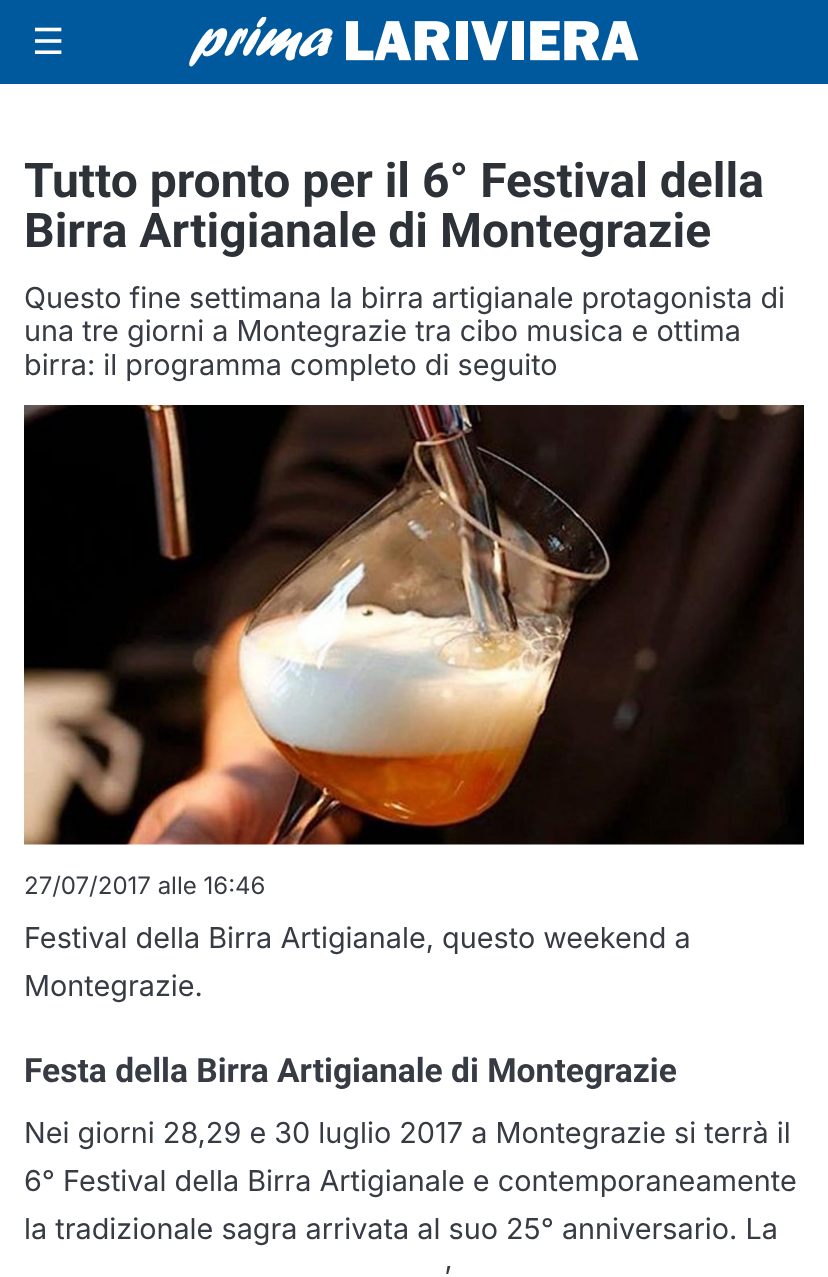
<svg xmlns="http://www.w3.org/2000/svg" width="828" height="1277">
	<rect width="100%" height="100%" fill="#FFFFFF" />
	<rect x="0" y="0" width="828" height="84" fill="#00599C" />
	<text x="32" y="54" font-family="DejaVu Sans" font-size="36" fill="#FFFFFF">☰</text>
	<image x="189" y="17" width="450" height="50" href="assets/img1.png" />
	<g font-family="Roboto" font-size="48" font-weight="700" fill="#2D3138">
		<text x="24" y="197">Tutto pronto per il 6° Festival della</text>
		<text x="24" y="247">Birra Artigianale di Montegrazie</text>
	</g>
	<g font-family="Inter" font-size="28.8" fill="#373C44">
		<text x="24" y="308">Questo fine settimana la birra artigianale protagonista di</text>
		<text x="24" y="341">una tre giorni a Montegrazie tra cibo musica e ottima</text>
		<text x="24" y="375">birra: il programma completo di seguito</text>
	</g>
	<image x="24" y="405" width="780" height="440" href="assets/img2.png" />
	<text x="24" y="894" font-family="Inter" font-size="24" fill="#373C44">27/07/2017 alle 16:46</text>
	<g font-family="Inter" font-size="28.8" fill="#373C44">
		<text x="24" y="948">Festival della Birra Artigianale, questo weekend a</text>
		<text x="24" y="996">Montegrazie.</text>
	</g>
	<text x="24" y="1082" font-family="Roboto" font-size="33.6" font-weight="700" fill="#373C44">Festa della Birra Artigianale di Montegrazie</text>
	<g font-family="Inter" font-size="28.8" fill="#373C44">
		<text x="24" y="1143">Nei giorni 28,29 e 30 luglio 2017 a Montegrazie si terrà il</text>
		<text x="24" y="1191">6° Festival della Birra Artigianale e contemporaneamente</text>
		<text x="24" y="1239">la tradizionale sagra arrivata al suo 25° anniversario. La</text>
		<text x="444" y="1287">’</text>
	</g>
</svg>
